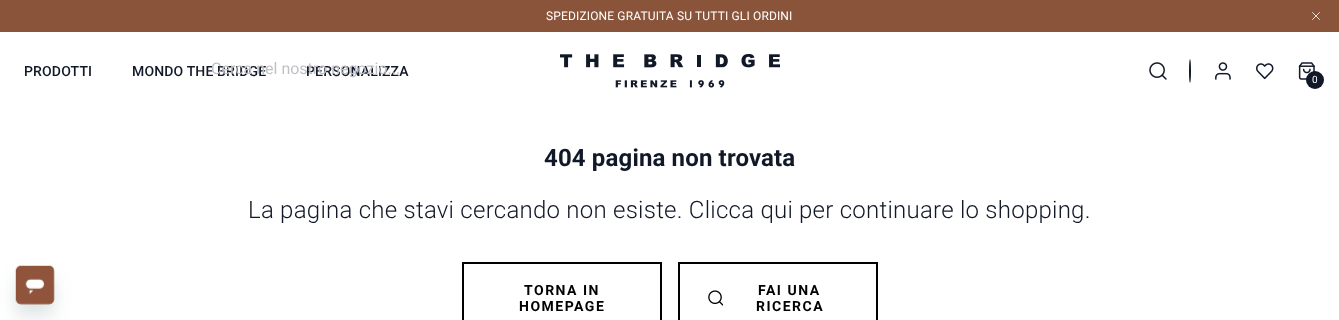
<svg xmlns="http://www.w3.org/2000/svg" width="1339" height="320">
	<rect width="100%" height="100%" fill="#FFFFFF" />
	<rect x="0" y="0" width="1339" height="32" fill="#8A543B" />
	<text x="546" y="20" font-family="Roboto" font-size="12" letter-spacing="0.15" fill="#FFFFFF">SPEDIZIONE GRATUITA SU TUTTI GLI ORDINI</text>
	<path d="M1319.5 12.5L1312.5 19.5M1319.5 19.5L1312.5 12.5" fill="none" stroke="#FFFFFF" stroke-width="0.8" stroke-linecap="round" stroke-linejoin="round" />
	<g font-family="Roboto" font-size="14" font-weight="500" letter-spacing="0.15" fill="#111827">
		<text x="132" y="76">MONDO THE BRIDGE</text>
		<text x="306" y="76">PERSONALIZZA</text>
	</g>
	<text x="211" y="74" font-family="Roboto" font-size="16" fill="#BFC1C5">Cerca nel nostro negozio...</text>
	<image x="560" y="54" width="220" height="34" href="assets/img1.png" />
	<text x="24" y="76" font-family="Roboto" font-size="14" font-weight="500" letter-spacing="0.15" fill="#111827">PRODOTTI</text>
	<image x="1149" y="62" width="18" height="18" href="assets/img2.png" />
	<ellipse cx="1190" cy="71" rx="1" ry="12" fill="#111827" />
	<image x="1215" y="62" width="16" height="18" href="assets/img3.png" />
	<image x="1256" y="63" width="18" height="17" href="assets/img4.png" />
	<image x="1298" y="62" width="17" height="18" href="assets/img5.png" />
	<circle cx="1315" cy="80" r="9" fill="#111827" />
	<text x="1312" y="83" font-family="Roboto" font-size="10" fill="#FFFFFF">0</text>
	<rect x="16" y="278" width="38" height="38" rx="5" fill="#17494D" fill-opacity="0.15" filter="blur(9px)" />
	<image x="15" y="265" width="40" height="40" href="assets/img6.png" />
	<text x="544" y="166" font-family="Roboto" font-size="24" font-weight="700" letter-spacing="0.15" fill="#111827">404 pagina non trovata</text>
	<g font-family="Roboto" font-size="24" font-weight="300" letter-spacing="0.25" fill="#111827">
		<text x="248" y="218">La pagina che stavi cercando non esiste. Clicca qui</text>
		<text x="799" y="218">per continuare lo shopping.</text>
	</g>
	<rect x="463" y="263" width="198" height="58" fill="none" stroke="#000000" stroke-width="2" />
	<g font-family="Roboto" font-size="14" font-weight="700" letter-spacing="1.5" fill="#000000">
		<text x="524" y="295">TORNA IN</text>
		<text x="519" y="311">HOMEPAGE</text>
	</g>
	<rect x="679" y="263" width="198" height="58" fill="none" stroke="#000000" stroke-width="2" />
	<image x="708" y="290" width="15" height="16" href="assets/img7.png" />
	<g font-family="Roboto" font-size="14" font-weight="700" letter-spacing="1.5" fill="#000000">
		<text x="758" y="295">FAI UNA</text>
		<text x="756" y="311">RICERCA</text>
	</g>
</svg>
